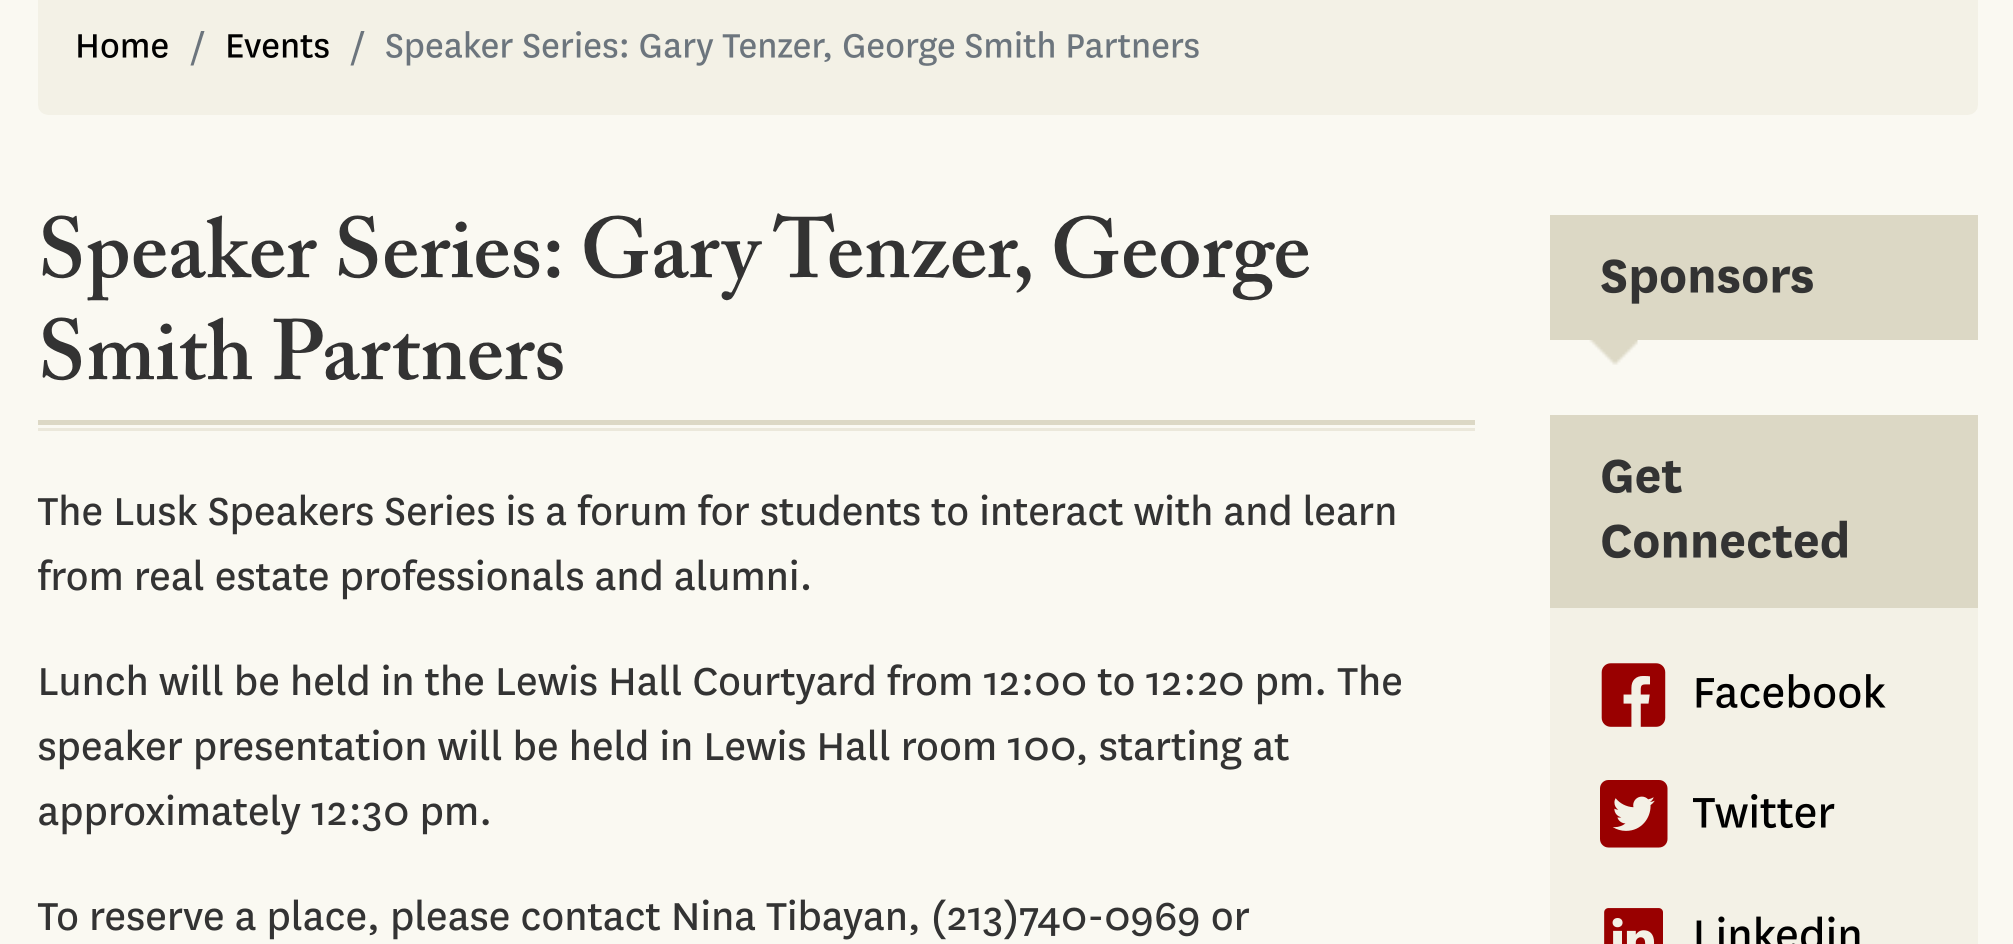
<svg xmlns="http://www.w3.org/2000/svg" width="2013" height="944">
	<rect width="100%" height="100%" fill="#FAF9F2" />
	<rect x="38" y="-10" width="1940" height="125" rx="10" fill="#F3F1E6" />
	<image x="78" y="34" width="90" height="24" href="assets/img1.png" />
	<path d="M190.5 65.5H193.5L204.5 31H201Z" fill="#6C757D" />
	<image x="228" y="34" width="101" height="24" href="assets/img2.png" />
	<path d="M350.5 65.5H353.5L364.5 31H361Z" fill="#6C757D" />
	<image x="386" y="31" width="813" height="35" href="assets/img3.png" />
	<rect x="38" y="428" width="1437" height="3" fill="#EBE8DB" />
	<g font-family="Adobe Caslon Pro" font-size="85" font-weight="600" fill="#333333">
		<text x="38" y="277">Speaker Series: Gary Tenzer, George</text>
		<text x="38" y="379">Smith Partners</text>
	</g>
	<rect x="38" y="420" width="1437" height="5" fill="#DCD8C5" />
	<image x="37" y="494" width="1358" height="41" href="assets/img4.png" />
	<image x="38" y="559" width="772" height="41" href="assets/img5.png" />
	<image x="41" y="664" width="1360" height="41" href="assets/img6.png" />
	<image x="38" y="729" width="1251" height="41" href="assets/img7.png" />
	<image x="39" y="794" width="450" height="41" href="assets/img8.png" />
	<image x="37" y="899" width="1213" height="41" href="assets/img9.png" />
	<rect x="1550" y="215" width="428" height="125" fill="#DCD8C5" />
	<image x="1601" y="259" width="212" height="45" href="assets/img10.png" />
	<image x="1589" y="340" width="49" height="25" href="assets/img11.png" />
	<rect x="1550" y="608" width="428" height="336" fill="#F3F1E6" />
	<rect x="1550" y="415" width="428" height="193" fill="#DCD8C5" />
	<image x="1602" y="459" width="80" height="35" href="assets/img12.png" />
	<image x="1602" y="520" width="245" height="39" href="assets/img13.png" />
	<image x="1601" y="663" width="65" height="64" href="assets/img14.png" />
	<image x="1696" y="674" width="190" height="35" href="assets/img15.png" />
	<image x="1600" y="780" width="68" height="68" href="assets/img16.png" />
	<image x="1693" y="794" width="142" height="35" href="assets/img17.png" />
	<image x="1604" y="908" width="59" height="36" href="assets/img18.png" />
	<image x="1696" y="916" width="164" height="28" href="assets/img19.png" />
</svg>
